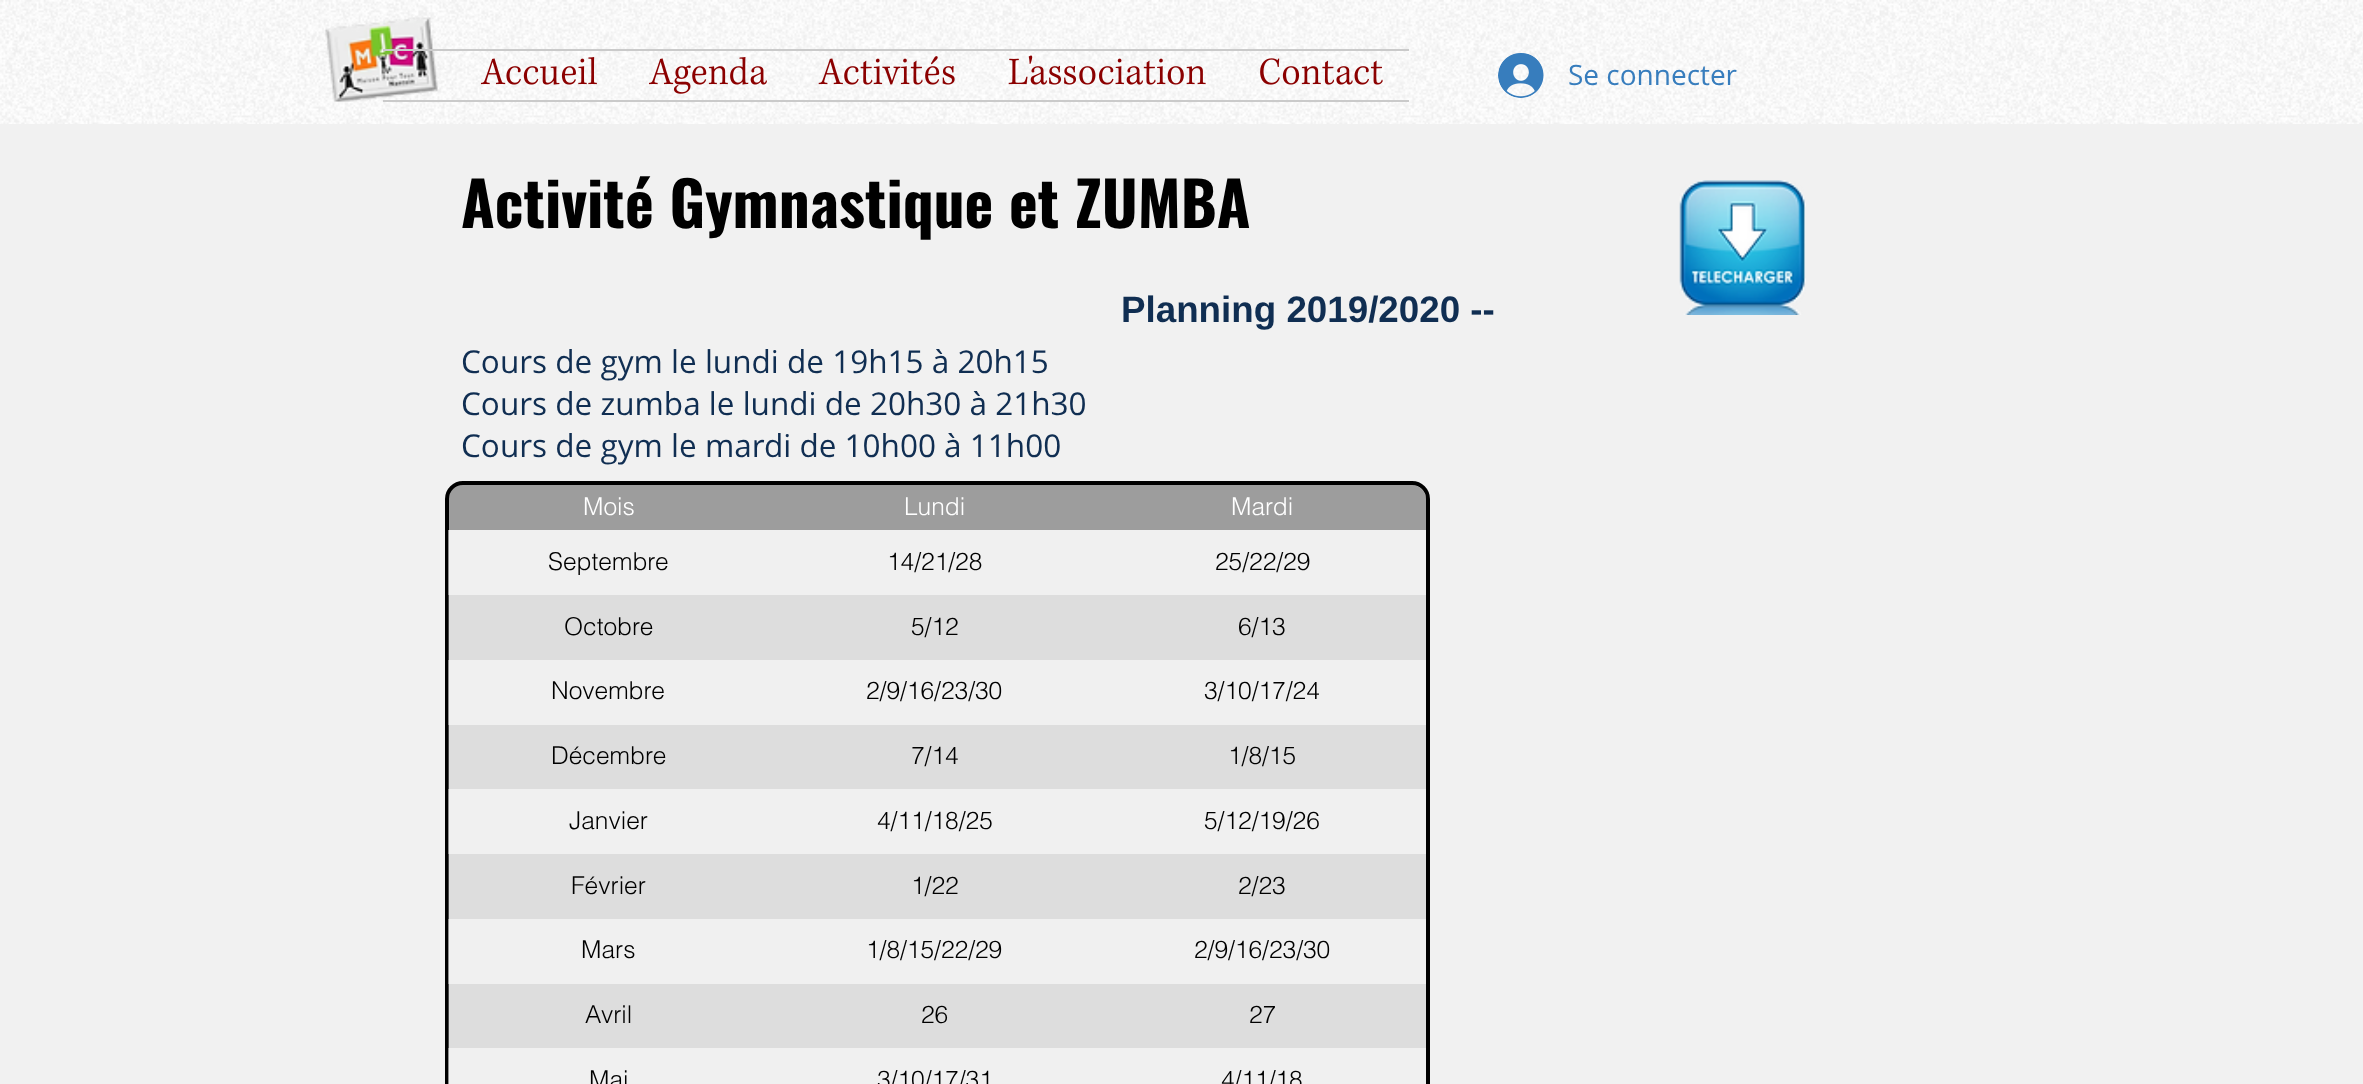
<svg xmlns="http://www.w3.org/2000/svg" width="2363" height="1084">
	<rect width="100%" height="100%" fill="#F1F1F1" />
	<rect x="0" y="0" width="2363" height="124" fill="#FFFFFF" />
	<image x="0" y="0" width="2363" height="124" href="assets/img1.png" />
	<image x="325" y="17" width="113" height="85" href="assets/img2.png" />
	<rect x="383" y="49" width="1026" height="2" fill="#CACACA" />
	<rect x="383" y="100" width="1026" height="2" fill="#CACACA" />
	<image x="480" y="57" width="117" height="28" href="assets/img3.png" />
	<image x="648" y="57" width="119" height="37" href="assets/img4.png" />
	<image x="818" y="56" width="137" height="29" href="assets/img5.png" />
	<image x="1008" y="55" width="198" height="30" href="assets/img6.png" />
	<image x="1260" y="58" width="123" height="27" href="assets/img7.png" />
	<image x="1498" y="53" width="46" height="45" href="assets/img8.png" />
	<text x="1568" y="85" font-family="Open Sans" font-size="28" fill="#377DBD">Se connecter</text>
	<text x="461" y="228" font-family="Oswald" font-size="61.25" font-weight="700" fill="#000000">Activité Gymnastique et ZUMBA</text>
	<text x="1121" y="322" font-family="Liberation Sans" font-size="36.75" font-weight="700" fill="#102E52">Planning 2019/2020 --</text>
	<image x="1679" y="180" width="127" height="135" href="assets/img9.png" />
	<g font-family="Open Sans" font-size="31.5" fill="#102E52">
		<text x="461" y="373">Cours de gym le lundi de 19h15 à 20h15</text>
		<text x="461" y="415">Cours de zumba le lundi de 20h30 à 21h30</text>
		<text x="461" y="457">Cours de gym le mardi de 10h00 à 11h00</text>
	</g>
	<rect x="447" y="483" width="981" height="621" rx="16" fill="#DDDDDD" stroke="#000000" stroke-width="4" />
	<path d="M462 485H1412C1419.5 485 1426 491.5 1426 499V530H448V499C448 491.5 454.5 485 462 485Z" fill="#000000" fill-opacity="0.29" />
	<g font-family="helvetica" font-size="24.5" font-weight="300" fill="#FFFFFF">
		<text x="583" y="515">Mois</text>
		<text x="904" y="515">Lundi</text>
		<text x="1231" y="515">Mardi</text>
	</g>
	<rect x="448" y="530" width="978" height="65" fill="#FFFFFF" fill-opacity="0.56" />
	<g font-family="helvetica" font-size="24.5" font-weight="300" fill="#000000">
		<text x="548" y="570">Septembre</text>
		<text x="887" y="570">14/21/28</text>
		<text x="1215" y="570">25/22/29</text>
	</g>
	<rect x="448" y="595" width="1" height="65" fill="#DDDDDD" fill-opacity="0.34" />
	<g font-family="helvetica" font-size="24.5" font-weight="300" fill="#000000">
		<text x="564" y="635">Octobre</text>
		<text x="911" y="635">5/12</text>
		<text x="1238" y="635">6/13</text>
	</g>
	<rect x="448" y="660" width="978" height="65" fill="#FFFFFF" fill-opacity="0.56" />
	<g font-family="helvetica" font-size="24.5" font-weight="300" fill="#000000">
		<text x="551" y="699">Novembre</text>
		<text x="866" y="699">2/9/16/23/30</text>
		<text x="1204" y="699">3/10/17/24</text>
	</g>
	<rect x="448" y="725" width="1" height="64" fill="#DDDDDD" fill-opacity="0.34" />
	<g font-family="helvetica" font-size="24.5" font-weight="300" fill="#000000">
		<text x="551" y="764">Décembre</text>
		<text x="911" y="764">7/14</text>
		<text x="1228" y="764">1/8/15</text>
	</g>
	<rect x="448" y="789" width="978" height="65" fill="#FFFFFF" fill-opacity="0.56" />
	<g font-family="helvetica" font-size="24.5" font-weight="300" fill="#000000">
		<text x="569" y="829">Janvier</text>
		<text x="877" y="829">4/11/18/25</text>
		<text x="1204" y="829">5/12/19/26</text>
	</g>
	<rect x="448" y="854" width="1" height="65" fill="#DDDDDD" fill-opacity="0.34" />
	<g font-family="helvetica" font-size="24.5" font-weight="300" fill="#000000">
		<text x="571" y="894">Février</text>
		<text x="911" y="894">1/22</text>
		<text x="1238" y="894">2/23</text>
	</g>
	<rect x="448" y="919" width="978" height="65" fill="#FFFFFF" fill-opacity="0.56" />
	<g font-family="helvetica" font-size="24.5" font-weight="300" fill="#000000">
		<text x="581" y="958">Mars</text>
		<text x="866" y="958">1/8/15/22/29</text>
		<text x="1194" y="958">2/9/16/23/30</text>
	</g>
	<rect x="448" y="984" width="1" height="64" fill="#DDDDDD" fill-opacity="0.34" />
	<g font-family="helvetica" font-size="24.5" font-weight="300" fill="#000000">
		<text x="585" y="1023">Avril</text>
		<text x="921" y="1023">26</text>
		<text x="1249" y="1023">27</text>
	</g>
	<rect x="448" y="1048" width="978" height="36" fill="#FFFFFF" fill-opacity="0.56" />
	<g font-family="helvetica" font-size="24.5" font-weight="300" fill="#000000">
		<text x="589" y="1088">Mai</text>
		<text x="877" y="1088">3/10/17/31</text>
		<text x="1221" y="1088">4/11/18</text>
	</g>
</svg>
